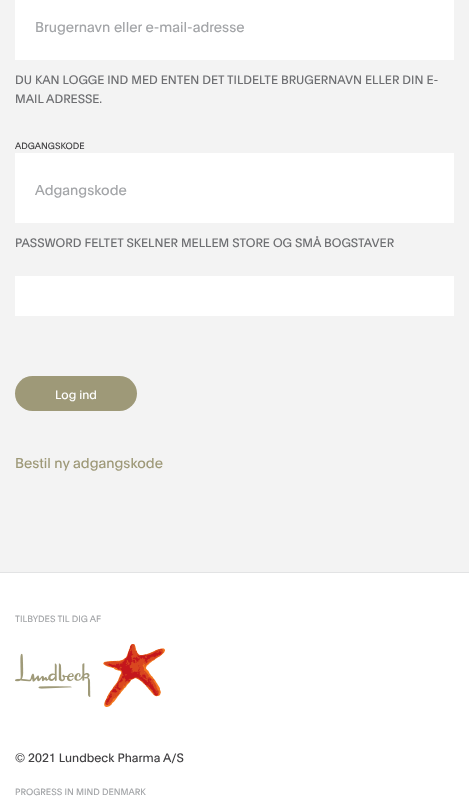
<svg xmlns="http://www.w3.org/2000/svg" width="469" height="808">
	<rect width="100%" height="100%" fill="#F3F3F3" />
	<rect x="15" y="0" width="439" height="60" fill="#FFFFFF" />
	<text x="35" y="32" font-family="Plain" font-size="14" fill="#A3A5A8">Brugernavn eller e-mail-adresse</text>
	<g font-family="Plain" font-size="12" fill="#6D6E71">
		<text x="15" y="84">DU KAN LOGGE IND MED ENTEN DET TILDELTE BRUGERNAVN ELLER DIN E-</text>
		<text x="15" y="103">MAIL ADRESSE.</text>
	</g>
	<text x="15" y="149" font-family="Plain" font-size="9" fill="#414042">ADGANGSKODE</text>
	<rect x="15" y="153" width="439" height="70" fill="#FFFFFF" />
	<text x="35" y="195" font-family="Plain" font-size="14" fill="#A3A5A8">Adgangskode</text>
	<text x="15" y="247" font-family="Plain" font-size="12" fill="#6D6E71">PASSWORD FELTET SKELNER MELLEM STORE OG SMÅ BOGSTAVER</text>
	<rect x="15" y="276" width="439" height="40" fill="#FFFFFF" />
	<rect x="15" y="376" width="122" height="35" rx="17.5" fill="#9E9978" />
	<text x="55" y="399" font-family="Plain" font-size="12" fill="#FFFFFF">Log ind</text>
	<text x="15" y="468" font-family="Plain" font-size="14" fill="#9E9978">Bestil ny adgangskode</text>
	<rect x="0" y="573" width="469" height="235" fill="#FFFFFF" />
	<rect x="0" y="572" width="469" height="1" fill="#E2E3E4" />
	<text x="15" y="622" font-family="Plain" font-size="9" fill="#A3A5A8">TILBYDES TIL DIG AF</text>
	<image x="15" y="644" width="150" height="63" href="assets/img1.png" />
	<text x="15" y="762" font-family="Plain" font-size="12" fill="#414042">© 2021 Lundbeck Pharma A/S</text>
	<text x="15" y="795" font-family="Plain" font-size="9" fill="#A3A5A8">PROGRESS IN MIND DENMARK</text>
</svg>
